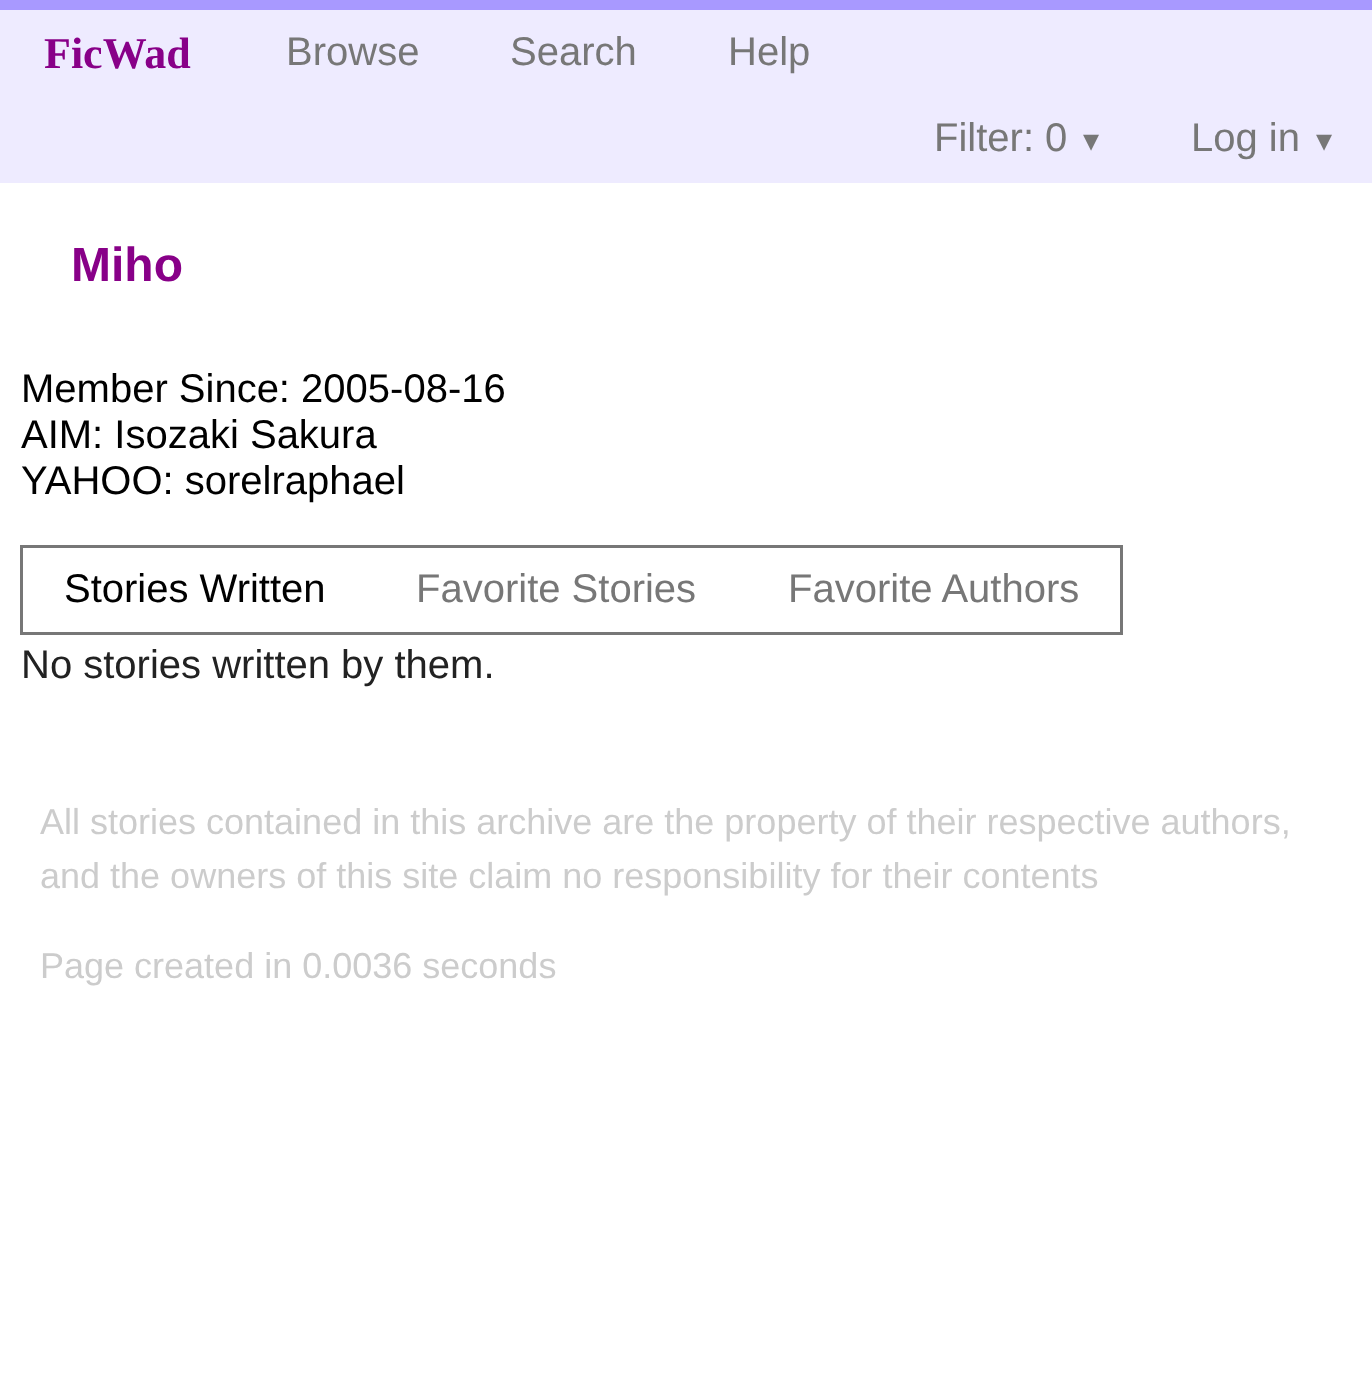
<svg xmlns="http://www.w3.org/2000/svg" width="1372" height="1393">
	<rect width="100%" height="100%" fill="#FFFFFF" />
	<rect x="0" y="10" width="1372" height="173" fill="#EEEBFF" />
	<rect x="0" y="0" width="1372" height="10" fill="#A899FF" />
	<text x="44" y="68" font-family="Liberation Serif" font-size="44" font-weight="700" fill="#880088">FicWad</text>
	<g font-family="Liberation Sans" font-size="40" fill="#777777">
		<text x="286" y="65">Browse</text>
		<text x="510" y="65">Search</text>
		<text x="728" y="65">Help</text>
		<text x="934" y="151">Filter: 0</text>
	</g>
	<text x="1083" y="151" font-family="DejaVu Sans" font-size="32" fill="#777777">▾</text>
	<text x="1191" y="151" font-family="Liberation Sans" font-size="40" fill="#777777">Log in</text>
	<text x="1316" y="151" font-family="DejaVu Sans" font-size="32" fill="#777777">▾</text>
	<text x="71" y="281" font-family="Liberation Sans" font-size="48" font-weight="700" fill="#880088">Miho</text>
	<g font-family="Liberation Sans" font-size="40" fill="#000000">
		<text x="21" y="402">Member Since: 2005-08-16</text>
		<text x="21" y="448">AIM: Isozaki Sakura</text>
		<text x="21" y="494">YAHOO: sorelraphael</text>
	</g>
	<rect x="21.5" y="546.5" width="1100" height="87" fill="none" stroke="#777777" stroke-width="3" />
	<text x="64" y="602" font-family="Liberation Sans" font-size="40" fill="#000000">Stories Written</text>
	<g font-family="Liberation Sans" font-size="40" fill="#777777">
		<text x="416" y="602">Favorite Stories</text>
		<text x="788" y="602">Favorite Authors</text>
	</g>
	<text x="21" y="678" font-family="Liberation Sans" font-size="40" fill="#222222">No stories written by them.</text>
	<g font-family="Liberation Sans" font-size="36" fill="#CCCCCC">
		<text x="40" y="834">All stories contained in this archive are the property of their respective authors,</text>
		<text x="40" y="888">and the owners of this site claim no responsibility for their contents</text>
		<text x="40" y="978">Page created in 0.0036 seconds</text>
	</g>
</svg>
